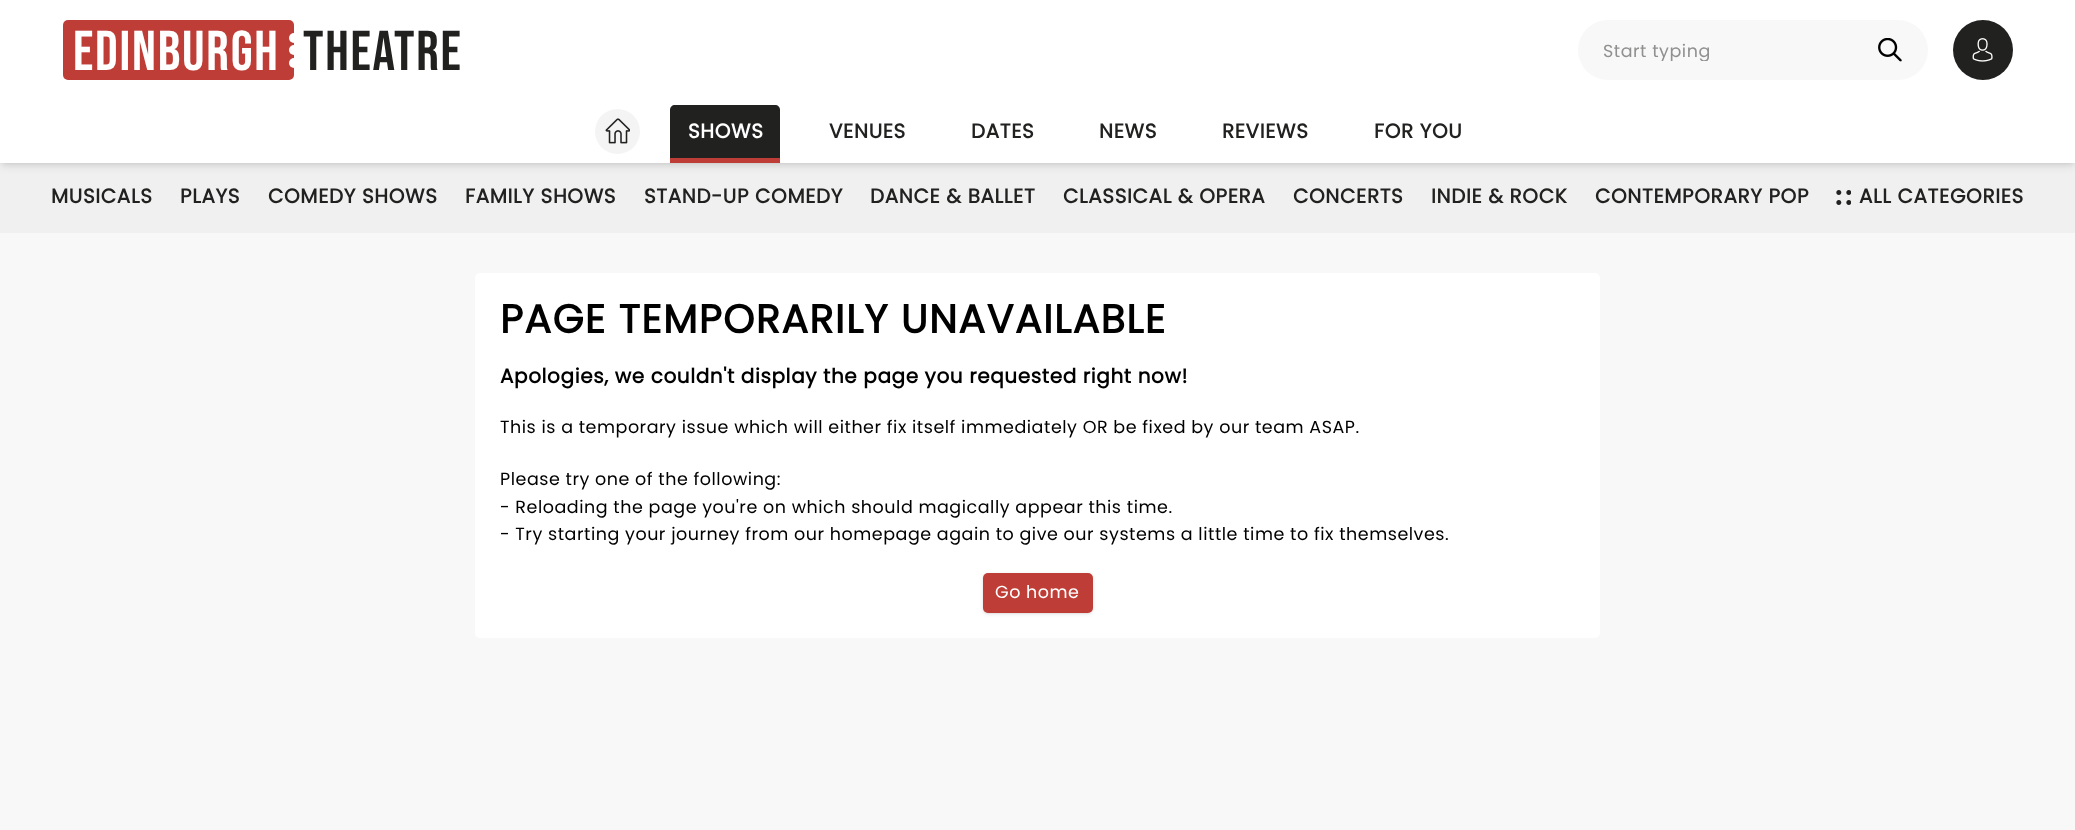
<svg xmlns="http://www.w3.org/2000/svg" width="2075" height="830">
	<defs>
		<clipPath id="clip1"><rect x="1603" y="39" width="260" height="22" /></clipPath>
	</defs>
	<rect width="100%" height="100%" fill="#F8F8F8" />
	<rect x="0" y="163" width="2075" height="70" fill="#F0F0F0" />
	<rect x="3" y="85" width="2070" height="78" fill="#000000" fill-opacity="0.1" filter="blur(2.5px)" />
	<rect x="1" y="86" width="2073" height="80" fill="#000000" fill-opacity="0.1" filter="blur(4px)" />
	<rect x="0" y="0" width="2075" height="163" fill="#FFFFFF" />
	<rect x="63" y="20" width="231" height="60" rx="5" fill="#BF3D37" />
	<text x="73" y="70" font-family="Bebas Neue" font-size="56" letter-spacing="1.75" fill="#FFFFFF">Edinburgh</text>
	<circle cx="294" cy="38" r="5" fill="#FFFFFF" />
	<circle cx="294" cy="50" r="5" fill="#FFFFFF" />
	<circle cx="294" cy="63" r="5" fill="#FFFFFF" />
	<text x="303" y="70" font-family="Bebas Neue" font-size="56" letter-spacing="1.75" fill="#212120">Theatre</text>
	<rect x="1578" y="20" width="350" height="60" rx="30" fill="#F8F8F8" />
	<g clip-path="url(#clip1)">
		<text x="1603" y="57" font-family="Poppins" font-size="17.5" letter-spacing="0.53" fill="#90908F">Start typing</text>
	</g>
	<image x="1878" y="38" width="24" height="24" href="assets/img1.png" />
	<circle cx="1983" cy="50" r="30" fill="#212120" />
	<image x="1972" y="38" width="21" height="24" href="assets/img2.png" />
	<circle cx="617.5" cy="131.5" r="22.5" fill="#F4F4F4" />
	<image x="605" y="118" width="25" height="26" href="assets/img3.png" />
	<path d="M675 105H775C778 105 780 107 780 110V158H670V110C670 107 672 105 675 105Z" fill="#212120" />
	<rect x="670" y="158" width="110" height="5" fill="#BF3D37" />
	<text x="688" y="138" font-family="Poppins" font-size="20" font-weight="700" letter-spacing="0.6" fill="#FFFFFF">SHOWS</text>
	<g font-family="Poppins" font-size="20" font-weight="700" letter-spacing="0.6" fill="#212120">
		<text x="829" y="138">VENUES</text>
		<text x="971" y="138">DATES</text>
		<text x="1099" y="138">NEWS</text>
		<text x="1222" y="138">REVIEWS</text>
		<text x="1374" y="138">FOR YOU</text>
		<text x="51" y="203">MUSICALS</text>
		<text x="180" y="203">PLAYS</text>
		<text x="268" y="203">COMEDY SHOWS</text>
		<text x="465" y="203">FAMILY SHOWS</text>
		<text x="644" y="203">STAND-UP COMEDY</text>
		<text x="870" y="203">DANCE &amp; BALLET</text>
		<text x="1063" y="203">CLASSICAL &amp; OPERA</text>
		<text x="1293" y="203">CONCERTS</text>
		<text x="1431" y="203">INDIE &amp; ROCK</text>
		<text x="1595" y="203">CONTEMPORARY POP</text>
	</g>
	<image x="1836" y="190" width="15" height="15" href="assets/img4.png" />
	<text x="1859" y="203" font-family="Poppins" font-size="20" font-weight="700" letter-spacing="0.6" fill="#212120">ALL CATEGORIES</text>
	<rect x="475" y="273" width="1125" height="365" rx="5" fill="#FFFFFF" />
	<text x="500" y="333" font-family="Poppins" font-size="40" font-weight="700" letter-spacing="1.2" fill="#000000">PAGE TEMPORARILY UNAVAILABLE</text>
	<text x="500" y="383" font-family="Poppins" font-size="20" font-weight="700" letter-spacing="0.6" fill="#000000">Apologies, we couldn't display the page you requested right now!</text>
	<g font-family="Poppins" font-size="17.5" letter-spacing="0.53" fill="#000000">
		<text x="500" y="433">This is a temporary issue which will either fix itself immediately OR be fixed by our team ASAP.</text>
		<text x="500" y="485">Please try one of the following:</text>
		<text x="500" y="513">- Reloading the page you're on which should magically appear this time.</text>
		<text x="500" y="540">- Try starting your journey from our homepage again to give our systems a little time to fix themselves.</text>
	</g>
	<rect x="984" y="575" width="107" height="38" rx="4" fill="#000000" fill-opacity="0.1" filter="blur(1px)" />
	<rect x="983" y="574" width="110" height="40" rx="5" fill="#000000" fill-opacity="0.1" filter="blur(2px)" />
	<rect x="983" y="573" width="110" height="40" rx="5" fill="#BF3D37" />
	<text x="995" y="598" font-family="Poppins" font-size="17.5" letter-spacing="0.53" fill="#FFFFFF">Go home</text>
</svg>
